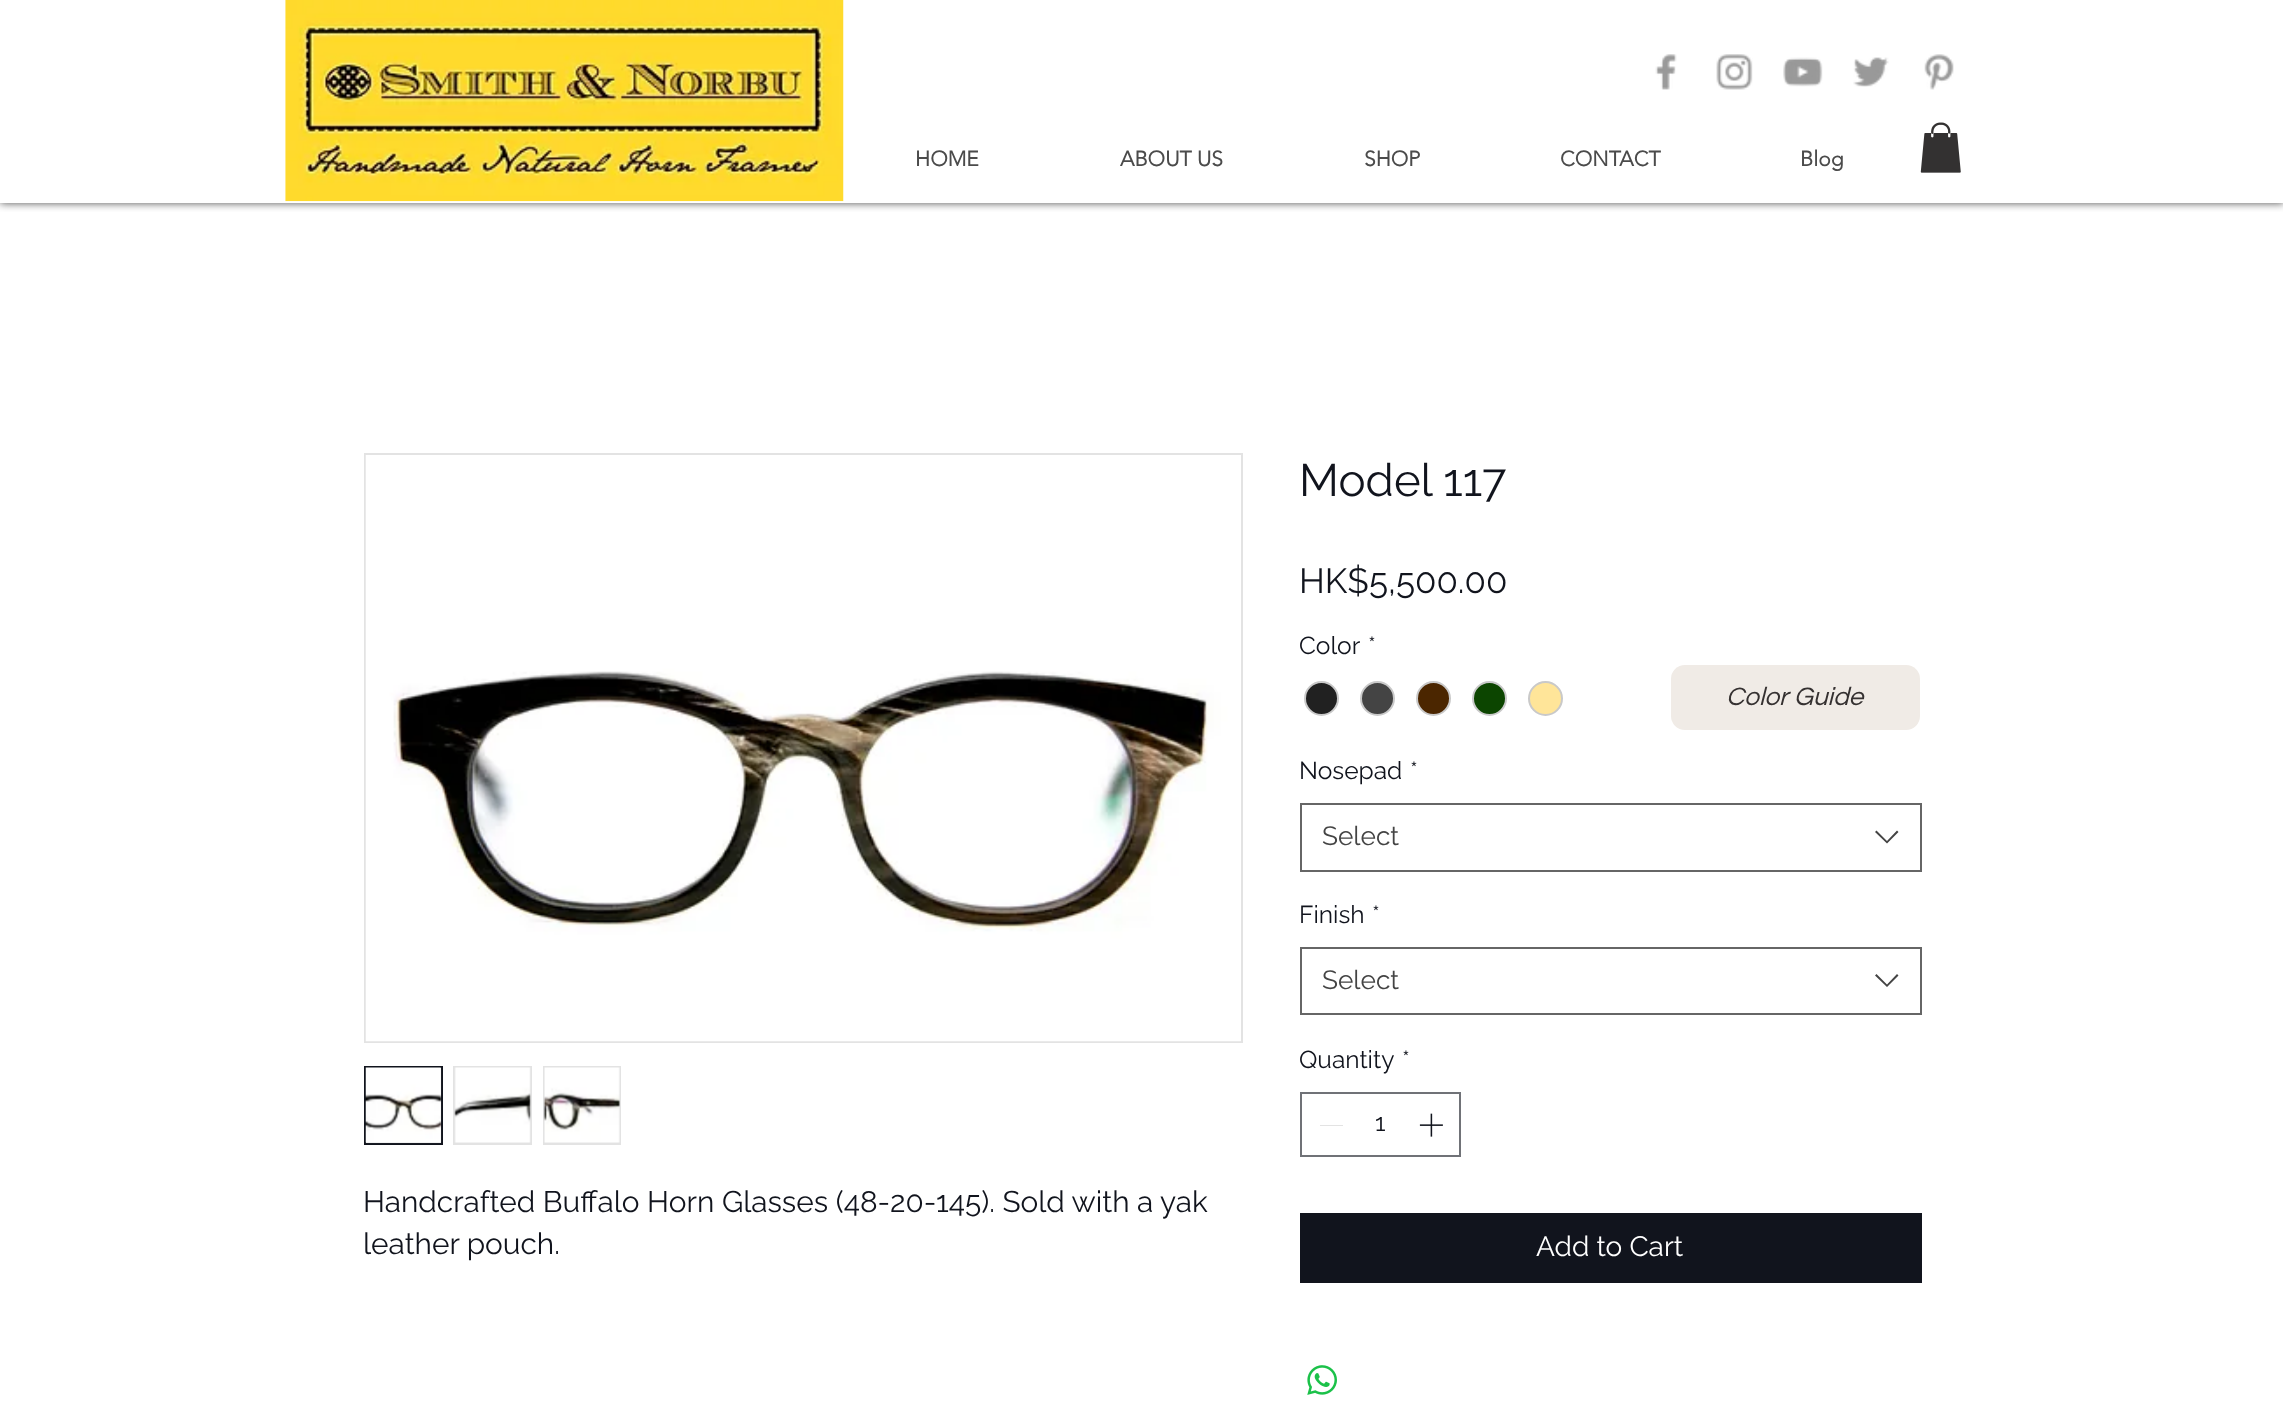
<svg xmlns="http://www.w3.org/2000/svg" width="2283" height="1426">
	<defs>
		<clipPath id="clip1"><rect x="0" y="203" width="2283" height="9" /></clipPath>
	</defs>
	<rect width="100%" height="100%" fill="#FFFFFF" />
	<g clip-path="url(#clip1)">
		<rect x="0" y="0" width="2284" height="203" fill="#000000" fill-opacity="0.7" filter="blur(4.5px)" />
	</g>
	<image x="285" y="0" width="559" height="202" href="assets/img1.png" />
	<image x="1655" y="54" width="22" height="36" href="assets/img2.png" />
	<image x="1716" y="54" width="37" height="36" href="assets/img3.png" />
	<image x="1783" y="57" width="40" height="30" href="assets/img4.png" />
	<image x="1853" y="57" width="36" height="30" href="assets/img5.png" />
	<image x="1924" y="54" width="30" height="36" href="assets/img6.png" />
	<g font-family="'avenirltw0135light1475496'" font-size="21" font-weight="700" fill="#4B4B4B">
		<text x="915" y="166">HOME</text>
		<text x="1120" y="166">ABOUT US</text>
		<text x="1364" y="166">SHOP</text>
		<text x="1560" y="166">CONTACT</text>
		<text x="1800" y="166">Blog</text>
	</g>
	<image x="1920" y="122" width="41" height="51" href="assets/img7.png" />
	<rect x="365" y="454" width="877" height="588" fill="none" stroke="#E3E3E3" stroke-width="2" />
	<image x="365" y="455" width="876" height="587" href="assets/img8.png" />
	<rect x="365" y="1067" width="77" height="77" fill="#E3E3E3" stroke="#11141D" stroke-width="2" />
	<image x="365" y="1067" width="77" height="77" href="assets/img9.png" />
	<rect x="453" y="1066" width="79" height="79" fill="#E3E3E3" />
	<image x="454" y="1067" width="77" height="76" href="assets/img10.png" />
	<rect x="543" y="1066" width="78" height="79" fill="#E3E3E3" />
	<image x="543" y="1067" width="77" height="76" href="assets/img11.png" />
	<g font-family="Raleway" font-size="29.75" fill="#11141D">
		<text x="363" y="1212">Handcrafted Buffalo Horn Glasses (48-20-145). Sold with a yak</text>
		<text x="363" y="1254">leather pouch.</text>
	</g>
	<text x="1299" y="496" font-family="Raleway" font-size="45.5" fill="#11141D">Model 117</text>
	<text x="1299" y="593" font-family="Raleway" font-size="35" fill="#11141D">HK$5,500.00</text>
	<g font-family="Raleway" font-size="24.5" fill="#11141D">
		<text x="1299" y="654">Color</text>
		<text x="1368" y="654">*</text>
	</g>
	<circle cx="1321.5" cy="698.5" r="16.5" fill="#212121" stroke="#C9C9C9" stroke-width="2" />
	<circle cx="1377.5" cy="698.5" r="16.5" fill="#444444" stroke="#C9C9C9" stroke-width="2" />
	<circle cx="1433.5" cy="698.5" r="16.5" fill="#4B2600" stroke="#C9C9C9" stroke-width="2" />
	<circle cx="1489.5" cy="698.5" r="16.5" fill="#0C4500" stroke="#C9C9C9" stroke-width="2" />
	<circle cx="1545.5" cy="698.5" r="16.5" fill="#FFE599" stroke="#C9C9C9" stroke-width="2" />
	<g font-family="Raleway" font-size="24.5" fill="#11141D">
		<text x="1299" y="779">Nosepad</text>
		<text x="1410" y="779">*</text>
	</g>
	<rect x="1301" y="804" width="620" height="67" fill="none" stroke="#666666" stroke-width="2" />
	<text x="1322" y="845" font-family="Raleway" font-size="26.25" fill="#444444">Select</text>
	<path d="M1897 830.5L1898.5 832L1887 843.5L1875 832L1876.5 830.5L1887 841Z" fill="#444444" fill-rule="evenodd" />
	<g font-family="Raleway" font-size="24.5" fill="#11141D">
		<text x="1299" y="923">Finish</text>
		<text x="1372" y="923">*</text>
	</g>
	<rect x="1301" y="948" width="620" height="66" fill="none" stroke="#666666" stroke-width="2" />
	<text x="1322" y="989" font-family="Raleway" font-size="26.25" fill="#444444">Select</text>
	<path d="M1897 974L1898.5 975.5L1887 987L1875 975.5L1876.5 974L1887 984.5Z" fill="#444444" fill-rule="evenodd" />
	<g font-family="Raleway" font-size="24.5" fill="#11141D">
		<text x="1299" y="1068">Quantity</text>
		<text x="1402" y="1068">*</text>
	</g>
	<rect x="1301" y="1093" width="159" height="63" fill="none" stroke="#707277" stroke-width="2" />
	<rect x="1320" y="1125" width="23" height="1" fill="#E3E3E3" />
	<text x="1375" y="1131" font-family="Raleway" font-size="24.5" fill="#11141D">1</text>
	<image x="1419" y="1113" width="24" height="24" href="assets/img12.png" />
	<rect x="1300" y="1213" width="622" height="70" fill="#11141D" />
	<text x="1536" y="1256" font-family="Raleway" font-size="28" fill="#FFFFFF">Add to Cart</text>
	<image x="1307" y="1365" width="30" height="30" href="assets/img13.png" />
	<rect x="1671" y="665" width="249" height="65" rx="14" fill="#F0EBE6" />
	<text x="1726" y="705" font-family="Questrial" font-size="26.25" font-style="italic" fill="#353131">Color Guide</text>
</svg>
